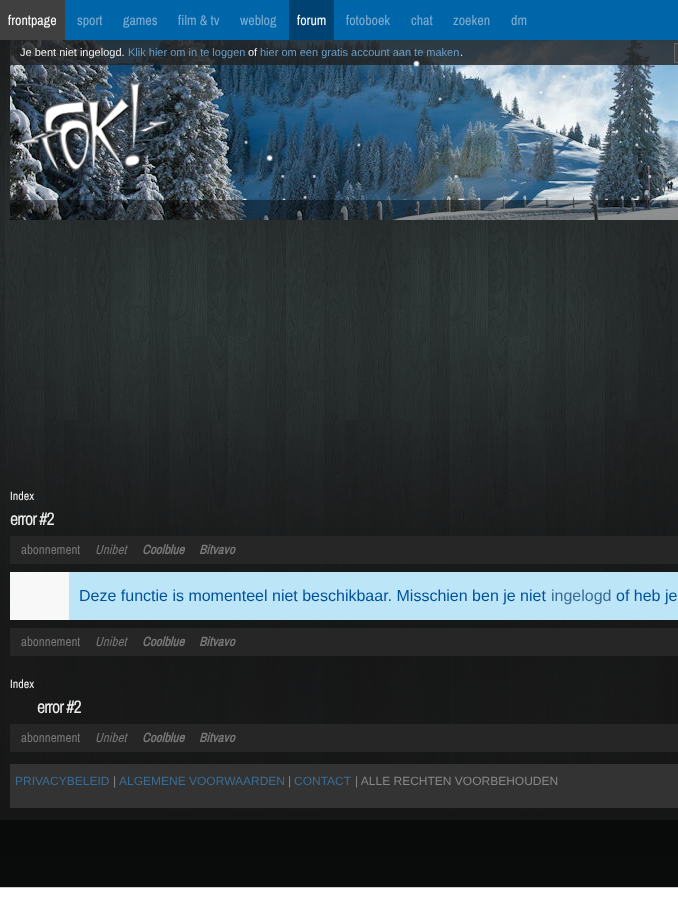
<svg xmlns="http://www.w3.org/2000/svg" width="678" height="898">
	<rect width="100%" height="100%" fill="#FFFFFF" />
	<rect x="65" y="0" width="613" height="40" fill="#0066AA" />
	<rect x="0" y="0" width="65" height="40" fill="#404040" />
	<text x="8" y="25" font-family="Archivo Narrow" font-size="14" fill="#FFFFFF">frontpage</text>
	<g font-family="Archivo Narrow" font-size="14" fill="#80ACD1">
		<text x="77" y="25">sport</text>
		<text x="123" y="25">games</text>
		<text x="178" y="25">film &amp; tv</text>
		<text x="240" y="25">weblog</text>
	</g>
	<rect x="289" y="0" width="45" height="40" fill="#004373" />
	<text x="297" y="25" font-family="Archivo Narrow" font-size="14" fill="#FFFFFF">forum</text>
	<g font-family="Archivo Narrow" font-size="14" fill="#80ACD1">
		<text x="346" y="25">fotoboek</text>
		<text x="411" y="25">chat</text>
		<text x="453" y="25">zoeken</text>
		<text x="511" y="25">dm</text>
	</g>
	<image x="0" y="40" width="678" height="847" href="assets/img1.png" />
	<rect x="0" y="40" width="678" height="780" fill="#1E1E1E" fill-opacity="0.6" />
	<image x="10" y="40" width="668" height="180" href="assets/img2.png" />
	<rect x="10" y="40" width="668" height="25" fill="#202020" fill-opacity="0.8" />
	<text x="20" y="56" font-family="Liberation Sans" font-size="11" fill="#EEEEEE">Je bent niet ingelogd.</text>
	<text x="128" y="56" font-family="Liberation Sans" font-size="11" fill="#6A9DC6">Klik hier om in te loggen</text>
	<text x="248" y="56" font-family="Liberation Sans" font-size="11" fill="#EEEEEE">of</text>
	<text x="260" y="56" font-family="Liberation Sans" font-size="11" fill="#6A9DC6">hier om een gratis account aan te maken</text>
	<text x="460" y="56" font-family="Liberation Sans" font-size="11" fill="#EEEEEE">.</text>
	<image x="219" y="60" width="459" height="140" href="assets/img4.png" />
	<rect x="674.5" y="43.5" width="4" height="19" fill="#444444" stroke="#666666" />
	<image x="20" y="82" width="148" height="90" href="assets/img3.png" />
	<rect x="10" y="200" width="668" height="20" fill="#000000" fill-opacity="0.4" />
	<text x="10" y="500" font-family="Archivo Narrow" font-size="12" fill="#EEEEEE">Index</text>
	<text x="10" y="525" font-family="Archivo Narrow" font-size="18" letter-spacing="-1" fill="#EEEEEE">error #2</text>
	<rect x="10" y="536" width="668" height="28" fill="#262626" />
	<text x="21" y="554" font-family="Archivo Narrow" font-size="13" fill="#777777">abonnement</text>
	<text x="95" y="554" font-family="Archivo Narrow" font-size="13" font-style="italic" fill="#777777">Unibet</text>
	<g font-family="Archivo Narrow" font-size="13" font-weight="700" font-style="italic" fill="#777777">
		<text x="142" y="554">Coolblue</text>
		<text x="199" y="554">Bitvavo</text>
	</g>
	<rect x="10" y="572" width="59" height="48" fill="#F8F8F8" />
	<rect x="69" y="572" width="609" height="48" fill="#BDE5F8" />
	<text x="79" y="601" font-family="Liberation Sans" font-size="16" fill="#00529B">Deze functie is momenteel niet beschikbaar. Misschien ben je niet</text>
	<text x="551" y="601" font-family="Liberation Sans" font-size="16" fill="#3A6D96">ingelogd</text>
	<text x="616" y="601" font-family="Liberation Sans" font-size="16" fill="#00529B">of heb je</text>
	<rect x="10" y="628" width="668" height="28" fill="#262626" />
	<text x="21" y="646" font-family="Archivo Narrow" font-size="13" fill="#777777">abonnement</text>
	<text x="95" y="646" font-family="Archivo Narrow" font-size="13" font-style="italic" fill="#777777">Unibet</text>
	<g font-family="Archivo Narrow" font-size="13" font-weight="700" font-style="italic" fill="#777777">
		<text x="142" y="646">Coolblue</text>
		<text x="199" y="646">Bitvavo</text>
	</g>
	<text x="10" y="688" font-family="Archivo Narrow" font-size="12" fill="#EEEEEE">Index</text>
	<text x="37" y="713" font-family="Archivo Narrow" font-size="18" letter-spacing="-1" fill="#EEEEEE">error #2</text>
	<rect x="10" y="724" width="668" height="28" fill="#262626" />
	<text x="21" y="742" font-family="Archivo Narrow" font-size="13" fill="#777777">abonnement</text>
	<text x="95" y="742" font-family="Archivo Narrow" font-size="13" font-style="italic" fill="#777777">Unibet</text>
	<g font-family="Archivo Narrow" font-size="13" font-weight="700" font-style="italic" fill="#777777">
		<text x="142" y="742">Coolblue</text>
		<text x="199" y="742">Bitvavo</text>
	</g>
	<rect x="10" y="764" width="668" height="44" fill="#333333" />
	<text x="15" y="785" font-family="Liberation Sans" font-size="12" fill="#3A6D96">PRIVACYBELEID</text>
	<text x="113" y="785" font-family="Liberation Sans" font-size="12" fill="#888888">|</text>
	<text x="119" y="785" font-family="Liberation Sans" font-size="12" fill="#3A6D96">ALGEMENE VOORWAARDEN</text>
	<text x="288" y="785" font-family="Liberation Sans" font-size="12" fill="#888888">|</text>
	<text x="294" y="785" font-family="Liberation Sans" font-size="12" fill="#3A6D96">CONTACT</text>
	<text x="355" y="785" font-family="Liberation Sans" font-size="12" fill="#888888">| ALLE RECHTEN VOORBEHOUDEN</text>
	<rect x="0" y="887" width="678" height="1" fill="#CCCCCC" />
</svg>
